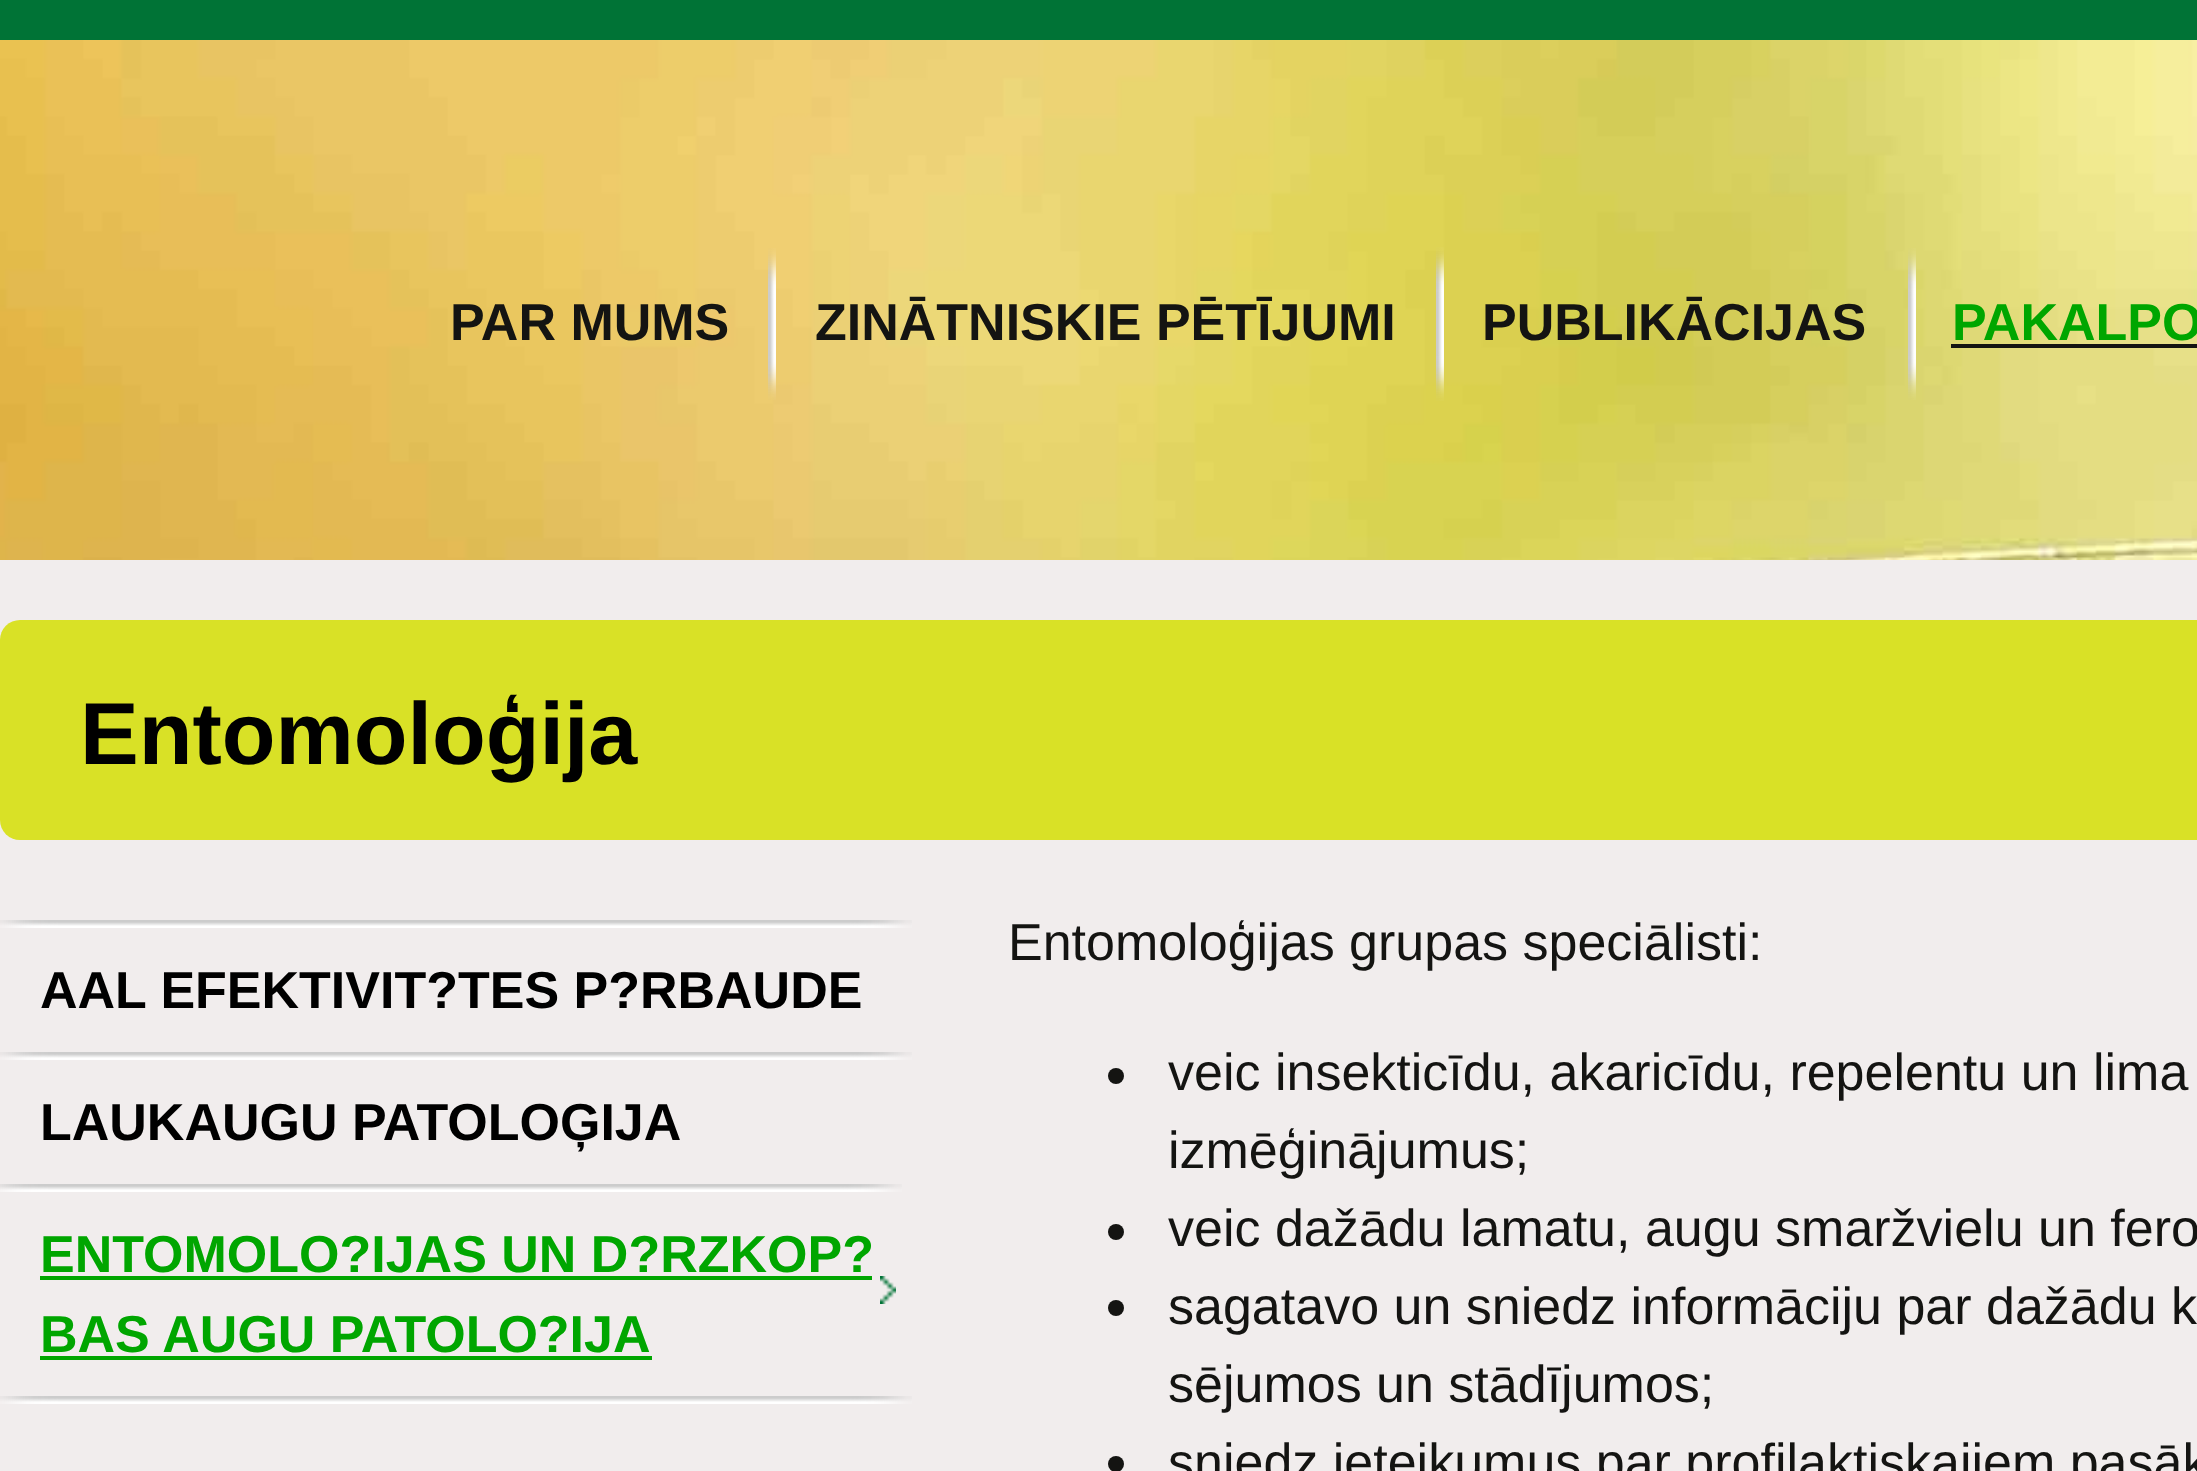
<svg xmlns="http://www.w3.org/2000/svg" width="2197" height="1471">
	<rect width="100%" height="100%" fill="#F1EDED" />
	<rect x="0" y="0" width="2197" height="40" fill="#007336" />
	<image x="0" y="40" width="2197" height="520" href="assets/img1.png" />
	<text x="450" y="340" font-family="Liberation Sans" font-size="52" font-weight="700" fill="#141412">PAR MUMS</text>
	<image x="768" y="248" width="8" height="152" href="assets/img2.png" />
	<text x="815" y="340" font-family="Liberation Sans" font-size="52" font-weight="700" fill="#141412">ZINĀTNISKIE PĒTĪJUMI</text>
	<image x="1436" y="247" width="8" height="154" href="assets/img3.png" />
	<text x="1482" y="340" font-family="Liberation Sans" font-size="52" font-weight="700" fill="#141412">PUBLIKĀCIJAS</text>
	<image x="1908" y="248" width="8" height="152" href="assets/img4.png" />
	<text x="1952" y="340" font-family="Liberation Sans" font-size="52" font-weight="700" fill="#00A600">PAKALPO</text>
	<rect x="1951" y="344" width="246" height="4" fill="#141412" />
	<rect x="0" y="620" width="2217" height="220" rx="20" fill="#D9E126" />
	<text x="80" y="764" font-family="Liberation Sans" font-size="88" font-weight="700" fill="#000000">Entomoloģija</text>
	<image x="0" y="920" width="912" height="8" href="assets/img5.png" />
	<text x="40" y="1008" font-family="Liberation Sans" font-size="52" font-weight="700" fill="#000000">AAL EFEKTIVIT?TES P?RBAUDE</text>
	<image x="0" y="1052" width="912" height="8" href="assets/img5.png" />
	<text x="40" y="1140" font-family="Liberation Sans" font-size="52" font-weight="700" fill="#000000">LAUKAUGU PATOLOĢIJA</text>
	<image x="0" y="1184" width="902" height="120" href="assets/img6.png" />
	<text x="40" y="1272" font-family="Liberation Sans" font-size="52" font-weight="700" fill="#00A600">ENTOMOLO?IJAS UN D?RZKOP?</text>
	<rect x="40" y="1276" width="832" height="4" fill="#00A600" />
	<text x="40" y="1352" font-family="Liberation Sans" font-size="52" font-weight="700" fill="#00A600">BAS AUGU PATOLO?IJA</text>
	<rect x="40" y="1356" width="612" height="4" fill="#00A600" />
	<image x="0" y="1396" width="912" height="8" href="assets/img5.png" />
	<text x="1008" y="960" font-family="Liberation Sans" font-size="52" fill="#141412">Entomoloģijas grupas speciālisti:</text>
	<circle cx="1116" cy="1076" r="8" fill="#141412" />
	<g font-family="Liberation Sans" font-size="52" fill="#141412">
		<text x="1168" y="1090">veic insekticīdu, akaricīdu, repelentu un lima</text>
		<text x="1168" y="1168">izmēģinājumus;</text>
	</g>
	<circle cx="1116" cy="1232" r="8" fill="#141412" />
	<text x="1168" y="1246" font-family="Liberation Sans" font-size="52" fill="#141412">veic dažādu lamatu, augu smaržvielu un fero</text>
	<circle cx="1116" cy="1308" r="8" fill="#141412" />
	<g font-family="Liberation Sans" font-size="52" fill="#141412">
		<text x="1168" y="1324">sagatavo un sniedz informāciju par dažādu k</text>
		<text x="1168" y="1402">sējumos un stādījumos;</text>
	</g>
	<circle cx="1116" cy="1464" r="8" fill="#141412" />
	<text x="1168" y="1480" font-family="Liberation Sans" font-size="52" fill="#141412">sniedz ieteikumus par profilaktiskajiem pasāk</text>
</svg>
